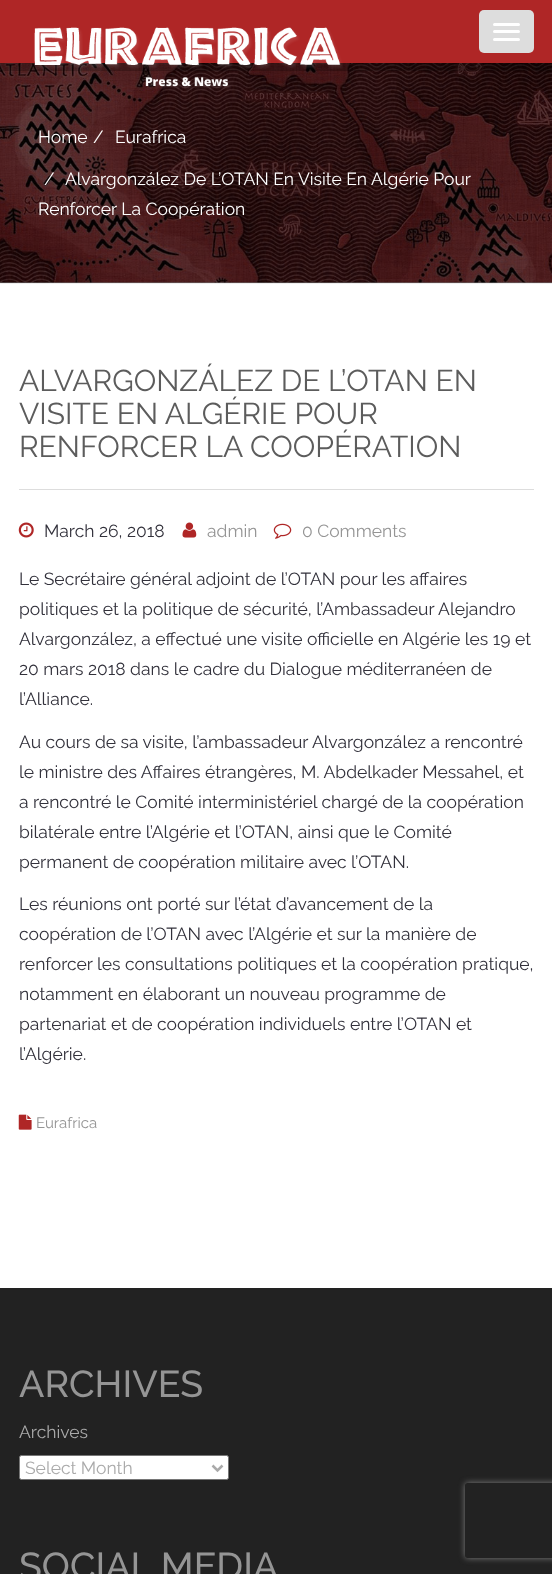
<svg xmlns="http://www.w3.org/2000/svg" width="552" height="1574">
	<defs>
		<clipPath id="clip1"><path d="M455 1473H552V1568H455ZM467.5 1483H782.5C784 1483 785 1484 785 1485.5V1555.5C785 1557 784 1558 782.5 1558H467.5C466 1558 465 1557 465 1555.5V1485.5C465 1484 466 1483 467.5 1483Z" clip-rule="evenodd" /></clipPath>
	</defs>
	<rect width="100%" height="100%" fill="#FFFFFF" />
	<rect x="0" y="282" width="552" height="1" fill="#707070" />
	<image x="0" y="63" width="552" height="220" href="assets/img2.png" />
	<path d="M0 62V71H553V9H552V62Z" fill="#000000" fill-opacity="0.2" />
	<rect x="0" y="0" width="552" height="63" fill="#AF2626" />
	<image x="34" y="27" width="309" height="63" href="assets/img1.png" />
	<rect x="479" y="10" width="55" height="43" rx="5" fill="#DDDDDD" />
	<rect x="493" y="23" width="27" height="3" rx="1.5" fill="#FFFFFF" />
	<rect x="493" y="30" width="27" height="3" rx="1.5" fill="#FFFFFF" />
	<rect x="493" y="38" width="27" height="3" rx="1.5" fill="#FFFFFF" />
	<rect x="0" y="283" width="552" height="1" fill="#EEEEEE" />
	<g font-family="Raleway" font-size="17.5" fill="#FFFFFF">
		<text x="38" y="143">Home</text>
		<text x="93" y="143">/</text>
		<text x="115" y="143">Eurafrica</text>
		<text x="44" y="185">/</text>
		<text x="65" y="185">Alvargonzález De L’OTAN En Visite En Algérie Pour</text>
		<text x="38" y="215">Renforcer La Coopération</text>
	</g>
	<rect x="19" y="489" width="515" height="1" fill="#DDDDDD" />
	<g font-family="Raleway" font-size="30" fill="#5C5C5C">
		<text x="19" y="391">ALVARGONZÁLEZ DE L’OTAN EN</text>
		<text x="19" y="424">VISITE EN ALGÉRIE POUR</text>
		<text x="19" y="457">RENFORCER LA COOPÉRATION</text>
	</g>
	<image x="18" y="522" width="16" height="16" href="assets/img3.png" />
	<text x="44" y="537" font-family="Raleway" font-size="17.5" fill="#32313B">March 26, 2018</text>
	<image x="182" y="522" width="15" height="16" href="assets/img4.png" />
	<text x="207" y="537" font-family="Raleway" font-size="17.5" fill="#959595">admin</text>
	<image x="273" y="523" width="19" height="16" href="assets/img5.png" />
	<text x="302" y="537" font-family="Raleway" font-size="17.5" fill="#959595">0 Comments</text>
	<g font-family="Raleway" font-size="17.5" fill="#32313B">
		<text x="19" y="585">Le Secrétaire général adjoint de l’OTAN pour les affaires</text>
		<text x="19" y="615">politiques et la politique de sécurité, l’Ambassadeur Alejandro</text>
		<text x="19" y="645">Alvargonzález, a effectué une visite officielle en Algérie les 19 et</text>
		<text x="19" y="675">20 mars 2018 dans le cadre du Dialogue méditerranéen de</text>
		<text x="19" y="705">l’Alliance.</text>
		<text x="19" y="748">Au cours de sa visite, l’ambassadeur Alvargonzález a rencontré</text>
		<text x="19" y="778">le ministre des Affaires étrangères, M. Abdelkader Messahel, et</text>
		<text x="19" y="808">a rencontré le Comité interministériel chargé de la coopération</text>
		<text x="19" y="838">bilatérale entre l’Algérie et l’OTAN, ainsi que le Comité</text>
		<text x="19" y="868">permanent de coopération militaire avec l’OTAN.</text>
		<text x="19" y="910">Les réunions ont porté sur l’état d’avancement de la</text>
		<text x="19" y="940">coopération de l’OTAN avec l’Algérie et sur la manière de</text>
		<text x="19" y="970">renforcer les consultations politiques et la coopération pratique,</text>
		<text x="19" y="1000">notamment en élaborant un nouveau programme de</text>
		<text x="19" y="1030">partenariat et de coopération individuels entre l’OTAN et</text>
		<text x="19" y="1060">l’Algérie.</text>
	</g>
	<image x="18" y="1114" width="14" height="16" href="assets/img6.png" />
	<text x="36" y="1128" font-family="Raleway" font-size="15" fill="#959595">Eurafrica</text>
	<rect x="0" y="1288" width="552" height="286" fill="#222222" />
	<text x="19" y="1397" font-family="Raleway" font-size="37.5" font-weight="500" fill="#959595">ARCHIVES</text>
	<text x="19" y="1438" font-family="Raleway" font-size="17.5" fill="#AAAAAA">Archives</text>
	<rect x="19.5" y="1455.5" width="209" height="24" rx="2" fill="#FFFFFF" stroke="#767676" />
	<path d="M212.5 1465.5L217.5 1470.5L222.5 1465.5" fill="none" stroke="#AAAAAA" stroke-width="2.5" />
	<text x="25" y="1474" font-family="Raleway" font-size="17.5" fill="#AAAAAA">Select Month</text>
	<text x="19" y="1579" font-family="Raleway" font-size="37.5" font-weight="500" fill="#959595">SOCIAL MEDIA</text>
	<g clip-path="url(#clip1)">
		<rect x="465" y="1483" width="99" height="75" rx="2.5" fill="#808080" filter="blur(3px)" />
	</g>
</svg>
